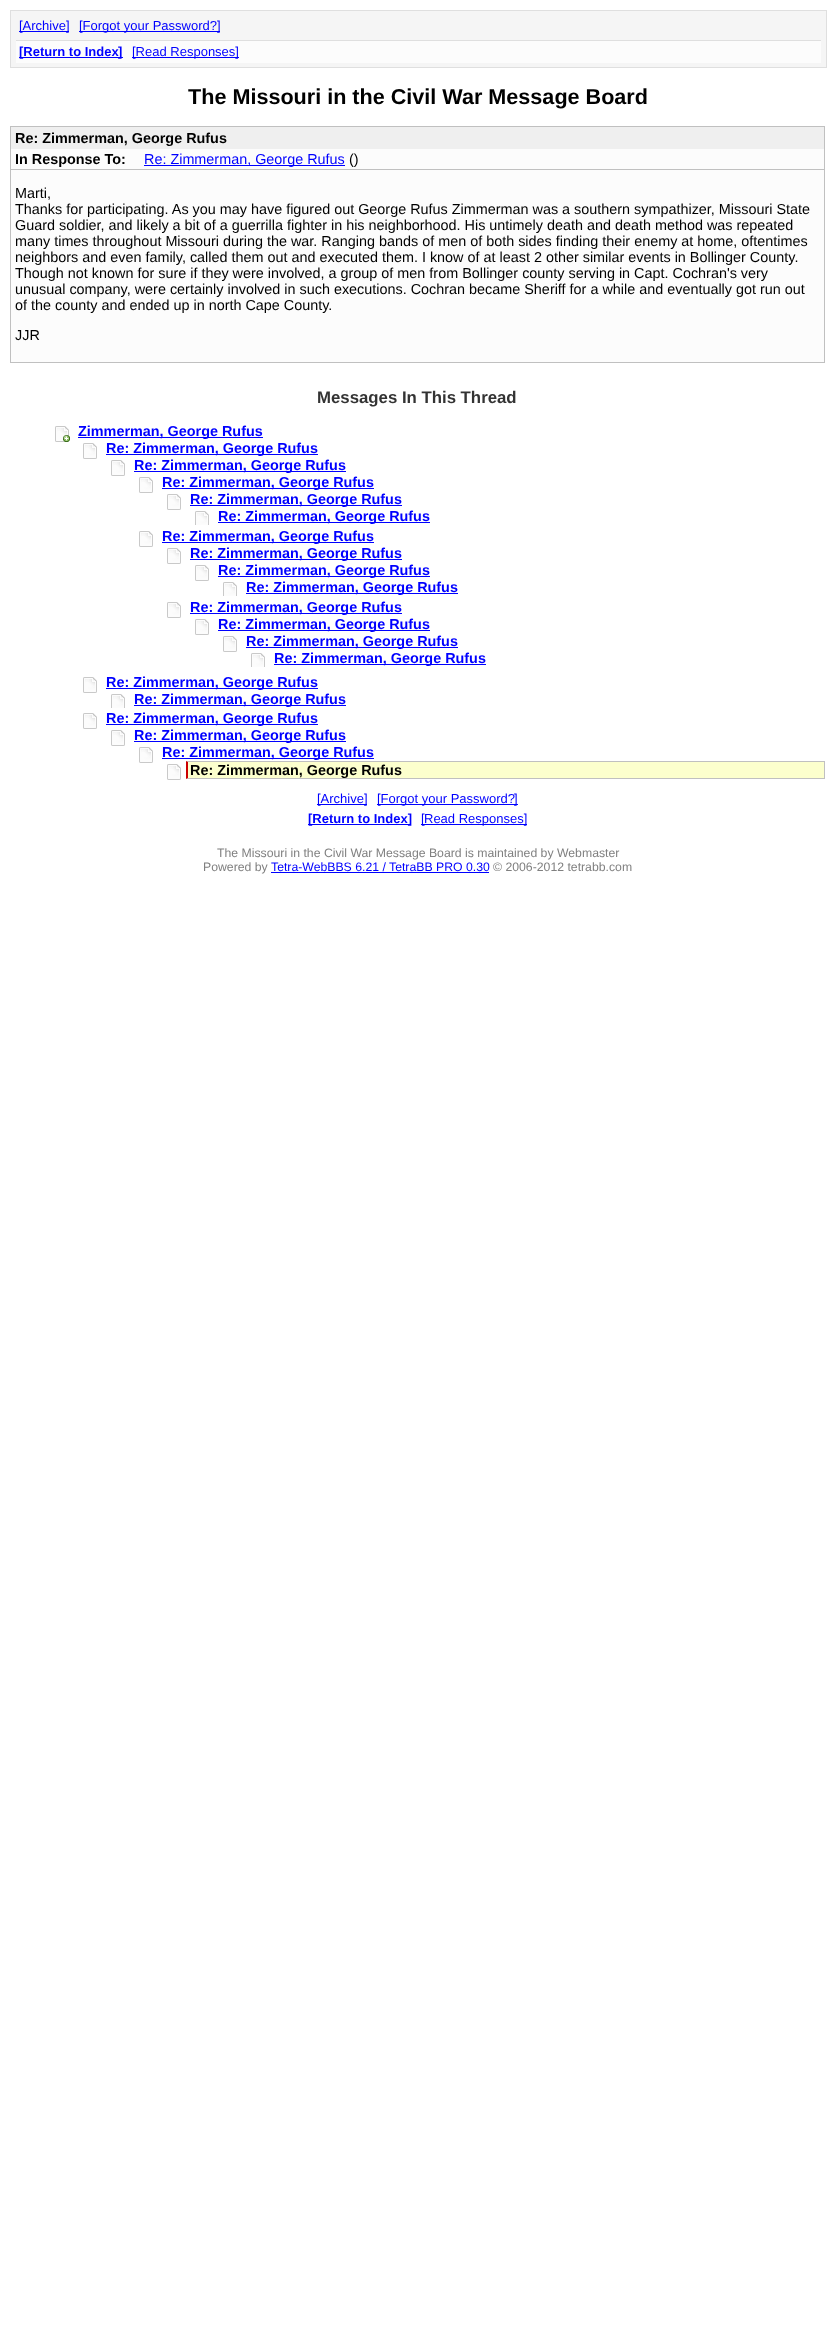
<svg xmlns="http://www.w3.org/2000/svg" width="835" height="2327">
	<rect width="100%" height="100%" fill="#FFFFFF" />
	<rect x="10.5" y="10.5" width="816" height="57" fill="#F5F5F5" stroke="#DFDFDF" />
	<rect x="19" y="31" width="50" height="1" fill="#0000FF" />
	<text x="19" y="30" font-family="Liberation Sans" font-size="13" fill="#0000FF">[Archive]</text>
	<rect x="79" y="31" width="141" height="1" fill="#0000FF" />
	<text x="79" y="30" font-family="Liberation Sans" font-size="13" fill="#0000FF">[Forgot your Password?]</text>
	<rect x="16" y="41" width="805" height="22" fill="#FCFCFC" />
	<rect x="16" y="40" width="805" height="1" fill="#DFDFDF" />
	<rect x="19" y="57" width="4" height="1" fill="#0000FF" />
	<text x="19" y="56" font-family="Liberation Sans" font-size="13" font-weight="700" fill="#0000FF">[Return to Index</text>
	<rect x="23" y="57" width="100" height="1" fill="#0000FF" />
	<text x="118" y="56" font-family="Liberation Sans" font-size="13" font-weight="700" fill="#0000FF">]</text>
	<rect x="132" y="57" width="107" height="1" fill="#0000FF" />
	<text x="132" y="56" font-family="Liberation Sans" font-size="13" fill="#0000FF">[Read Responses]</text>
	<text x="188" y="104" font-family="Liberation Sans" font-size="21.6" font-weight="700" fill="#000000">The Missouri in the Civil War Message Board</text>
	<rect x="11" y="149" width="813" height="213" fill="#FCFCFC" />
	<rect x="10.5" y="126.5" width="814" height="236" fill="none" stroke="#C0C0C0" />
	<rect x="11" y="127" width="813" height="22" fill="#EFEFEF" />
	<g font-family="Liberation Sans" font-size="14.4" font-weight="700" fill="#000000">
		<text x="15" y="143">Re: Zimmerman, George Rufus</text>
		<text x="15" y="164">In Response To:</text>
	</g>
	<rect x="144" y="165" width="201" height="1" fill="#0000FF" />
	<text x="144" y="164" font-family="Liberation Sans" font-size="14.4" fill="#0000FF">Re: Zimmerman, George Rufus</text>
	<text x="349" y="164" font-family="Liberation Sans" font-size="14.4" fill="#000000">()</text>
	<rect x="11" y="169" width="813" height="1" fill="#C0C0C0" />
	<g font-family="Liberation Sans" font-size="14.4" fill="#000000">
		<text x="15" y="198">Marti,</text>
		<text x="15" y="214">Thanks for participating. As you may have figured out George Rufus Zimmerman was a southern sympathizer, Missouri State</text>
		<text x="15" y="230">Guard soldier, and likely a bit of a guerrilla fighter in his neighborhood. His untimely death and death method was repeated</text>
		<text x="15" y="246">many times throughout Missouri during the war. Ranging bands of men of both sides finding their enemy at home, oftentimes</text>
		<text x="15" y="262">neighbors and even family, called them out and executed them. I know of at least 2 other similar events in Bollinger County.</text>
		<text x="15" y="278">Though not known for sure if they were involved, a group of men from Bollinger county serving in Capt. Cochran's very</text>
		<text x="15" y="294">unusual company, were certainly involved in such executions. Cochran became Sheriff for a while and eventually got run out</text>
		<text x="15" y="310">of the county and ended up in north Cape County.</text>
		<text x="15" y="340">JJR</text>
	</g>
	<text x="317" y="403" font-family="Liberation Sans" font-size="16.8" font-weight="700" fill="#333333">Messages In This Thread</text>
	<image x="55" y="426" width="15" height="16" href="assets/img1.png" />
	<rect x="78" y="437" width="185" height="1" fill="#0000FF" />
	<text x="78" y="436" font-family="Liberation Sans" font-size="14.4" font-weight="700" fill="#0000FF">Zimmerman, George Rufus</text>
	<image x="83" y="443" width="14" height="16" href="assets/img2.png" />
	<rect x="106" y="454" width="212" height="1" fill="#0000FF" />
	<text x="106" y="453" font-family="Liberation Sans" font-size="14.4" font-weight="700" fill="#0000FF">Re: Zimmerman, George Rufus</text>
	<image x="111" y="460" width="14" height="16" href="assets/img2.png" />
	<rect x="134" y="471" width="212" height="1" fill="#0000FF" />
	<text x="134" y="470" font-family="Liberation Sans" font-size="14.4" font-weight="700" fill="#0000FF">Re: Zimmerman, George Rufus</text>
	<image x="139" y="477" width="14" height="16" href="assets/img2.png" />
	<rect x="162" y="488" width="212" height="1" fill="#0000FF" />
	<text x="162" y="487" font-family="Liberation Sans" font-size="14.4" font-weight="700" fill="#0000FF">Re: Zimmerman, George Rufus</text>
	<image x="167" y="494" width="14" height="16" href="assets/img2.png" />
	<rect x="190" y="505" width="212" height="1" fill="#0000FF" />
	<text x="190" y="504" font-family="Liberation Sans" font-size="14.4" font-weight="700" fill="#0000FF">Re: Zimmerman, George Rufus</text>
	<image x="195" y="511" width="14" height="14" href="assets/img3.png" />
	<rect x="218" y="522" width="212" height="1" fill="#0000FF" />
	<text x="218" y="521" font-family="Liberation Sans" font-size="14.4" font-weight="700" fill="#0000FF">Re: Zimmerman, George Rufus</text>
	<image x="139" y="531" width="14" height="16" href="assets/img2.png" />
	<rect x="162" y="542" width="212" height="1" fill="#0000FF" />
	<text x="162" y="541" font-family="Liberation Sans" font-size="14.4" font-weight="700" fill="#0000FF">Re: Zimmerman, George Rufus</text>
	<image x="167" y="548" width="14" height="16" href="assets/img2.png" />
	<rect x="190" y="559" width="212" height="1" fill="#0000FF" />
	<text x="190" y="558" font-family="Liberation Sans" font-size="14.4" font-weight="700" fill="#0000FF">Re: Zimmerman, George Rufus</text>
	<image x="195" y="565" width="14" height="16" href="assets/img2.png" />
	<rect x="218" y="576" width="212" height="1" fill="#0000FF" />
	<text x="218" y="575" font-family="Liberation Sans" font-size="14.4" font-weight="700" fill="#0000FF">Re: Zimmerman, George Rufus</text>
	<image x="223" y="582" width="14" height="14" href="assets/img3.png" />
	<rect x="246" y="593" width="212" height="1" fill="#0000FF" />
	<text x="246" y="592" font-family="Liberation Sans" font-size="14.4" font-weight="700" fill="#0000FF">Re: Zimmerman, George Rufus</text>
	<image x="167" y="602" width="14" height="16" href="assets/img2.png" />
	<rect x="190" y="613" width="212" height="1" fill="#0000FF" />
	<text x="190" y="612" font-family="Liberation Sans" font-size="14.4" font-weight="700" fill="#0000FF">Re: Zimmerman, George Rufus</text>
	<image x="195" y="619" width="14" height="16" href="assets/img2.png" />
	<rect x="218" y="630" width="212" height="1" fill="#0000FF" />
	<text x="218" y="629" font-family="Liberation Sans" font-size="14.4" font-weight="700" fill="#0000FF">Re: Zimmerman, George Rufus</text>
	<image x="223" y="636" width="14" height="16" href="assets/img2.png" />
	<rect x="246" y="647" width="212" height="1" fill="#0000FF" />
	<text x="246" y="646" font-family="Liberation Sans" font-size="14.4" font-weight="700" fill="#0000FF">Re: Zimmerman, George Rufus</text>
	<image x="251" y="653" width="14" height="14" href="assets/img3.png" />
	<rect x="274" y="664" width="212" height="1" fill="#0000FF" />
	<text x="274" y="663" font-family="Liberation Sans" font-size="14.4" font-weight="700" fill="#0000FF">Re: Zimmerman, George Rufus</text>
	<image x="83" y="677" width="14" height="16" href="assets/img2.png" />
	<rect x="106" y="688" width="212" height="1" fill="#0000FF" />
	<text x="106" y="687" font-family="Liberation Sans" font-size="14.4" font-weight="700" fill="#0000FF">Re: Zimmerman, George Rufus</text>
	<image x="111" y="694" width="14" height="14" href="assets/img3.png" />
	<rect x="134" y="705" width="212" height="1" fill="#0000FF" />
	<text x="134" y="704" font-family="Liberation Sans" font-size="14.4" font-weight="700" fill="#0000FF">Re: Zimmerman, George Rufus</text>
	<image x="83" y="713" width="14" height="16" href="assets/img2.png" />
	<rect x="106" y="724" width="212" height="1" fill="#0000FF" />
	<text x="106" y="723" font-family="Liberation Sans" font-size="14.4" font-weight="700" fill="#0000FF">Re: Zimmerman, George Rufus</text>
	<image x="111" y="730" width="14" height="16" href="assets/img2.png" />
	<rect x="134" y="741" width="212" height="1" fill="#0000FF" />
	<text x="134" y="740" font-family="Liberation Sans" font-size="14.4" font-weight="700" fill="#0000FF">Re: Zimmerman, George Rufus</text>
	<image x="139" y="747" width="14" height="16" href="assets/img2.png" />
	<rect x="162" y="758" width="212" height="1" fill="#0000FF" />
	<text x="162" y="757" font-family="Liberation Sans" font-size="14.4" font-weight="700" fill="#0000FF">Re: Zimmerman, George Rufus</text>
	<image x="167" y="764" width="14" height="16" href="assets/img2.png" />
	<rect x="188" y="762" width="636" height="16" fill="#FCFFCD" />
	<path d="M186 761H825L824 762H188Z" fill="#C0C0C0" />
	<rect x="824" y="761" width="1" height="18" fill="#C0C0C0" />
	<path d="M825 779H186L188 778H824Z" fill="#C0C0C0" />
	<path d="M186 779V761L188 762V778Z" fill="#CC0000" />
	<text x="190" y="775" font-family="Liberation Sans" font-size="14.4" font-weight="700" fill="#000000">Re: Zimmerman, George Rufus</text>
	<rect x="317" y="804" width="50" height="1" fill="#0000FF" />
	<text x="317" y="803" font-family="Liberation Sans" font-size="13" fill="#0000FF">[Archive]</text>
	<rect x="377" y="804" width="137" height="1" fill="#0000FF" />
	<text x="377" y="803" font-family="Liberation Sans" font-size="13" fill="#0000FF">[Forgot your Password?</text>
	<rect x="514" y="804" width="4" height="1" fill="#0000FF" />
	<text x="514" y="803" font-family="Liberation Sans" font-size="13" fill="#0000FF">]</text>
	<rect x="308" y="824" width="103" height="1" fill="#0000FF" />
	<text x="308" y="823" font-family="Liberation Sans" font-size="13" font-weight="700" fill="#0000FF">[Return to Index]</text>
	<rect x="421" y="824" width="3" height="1" fill="#0000FF" />
	<text x="421" y="823" font-family="Liberation Sans" font-size="13" fill="#0000FF">[</text>
	<rect x="424" y="824" width="103" height="1" fill="#0000FF" />
	<text x="424" y="823" font-family="Liberation Sans" font-size="13" fill="#0000FF">Read Responses]</text>
	<g font-family="Liberation Sans" font-size="12.25" fill="#808080">
		<text x="217" y="857">The Missouri in the Civil War Message Board is maintained by Webmaster</text>
		<text x="203" y="871">Powered by</text>
	</g>
	<text x="271" y="871" font-family="Liberation Sans" font-size="12.25" fill="#0000FF">Tetra-WebBBS 6.21 / TetraBB PRO 0.30</text>
	<rect x="271" y="872" width="218" height="1" fill="#0000FF" />
	<text x="493" y="871" font-family="Liberation Sans" font-size="12.25" fill="#808080">© 2006-2012 tetrabb.com</text>
</svg>
